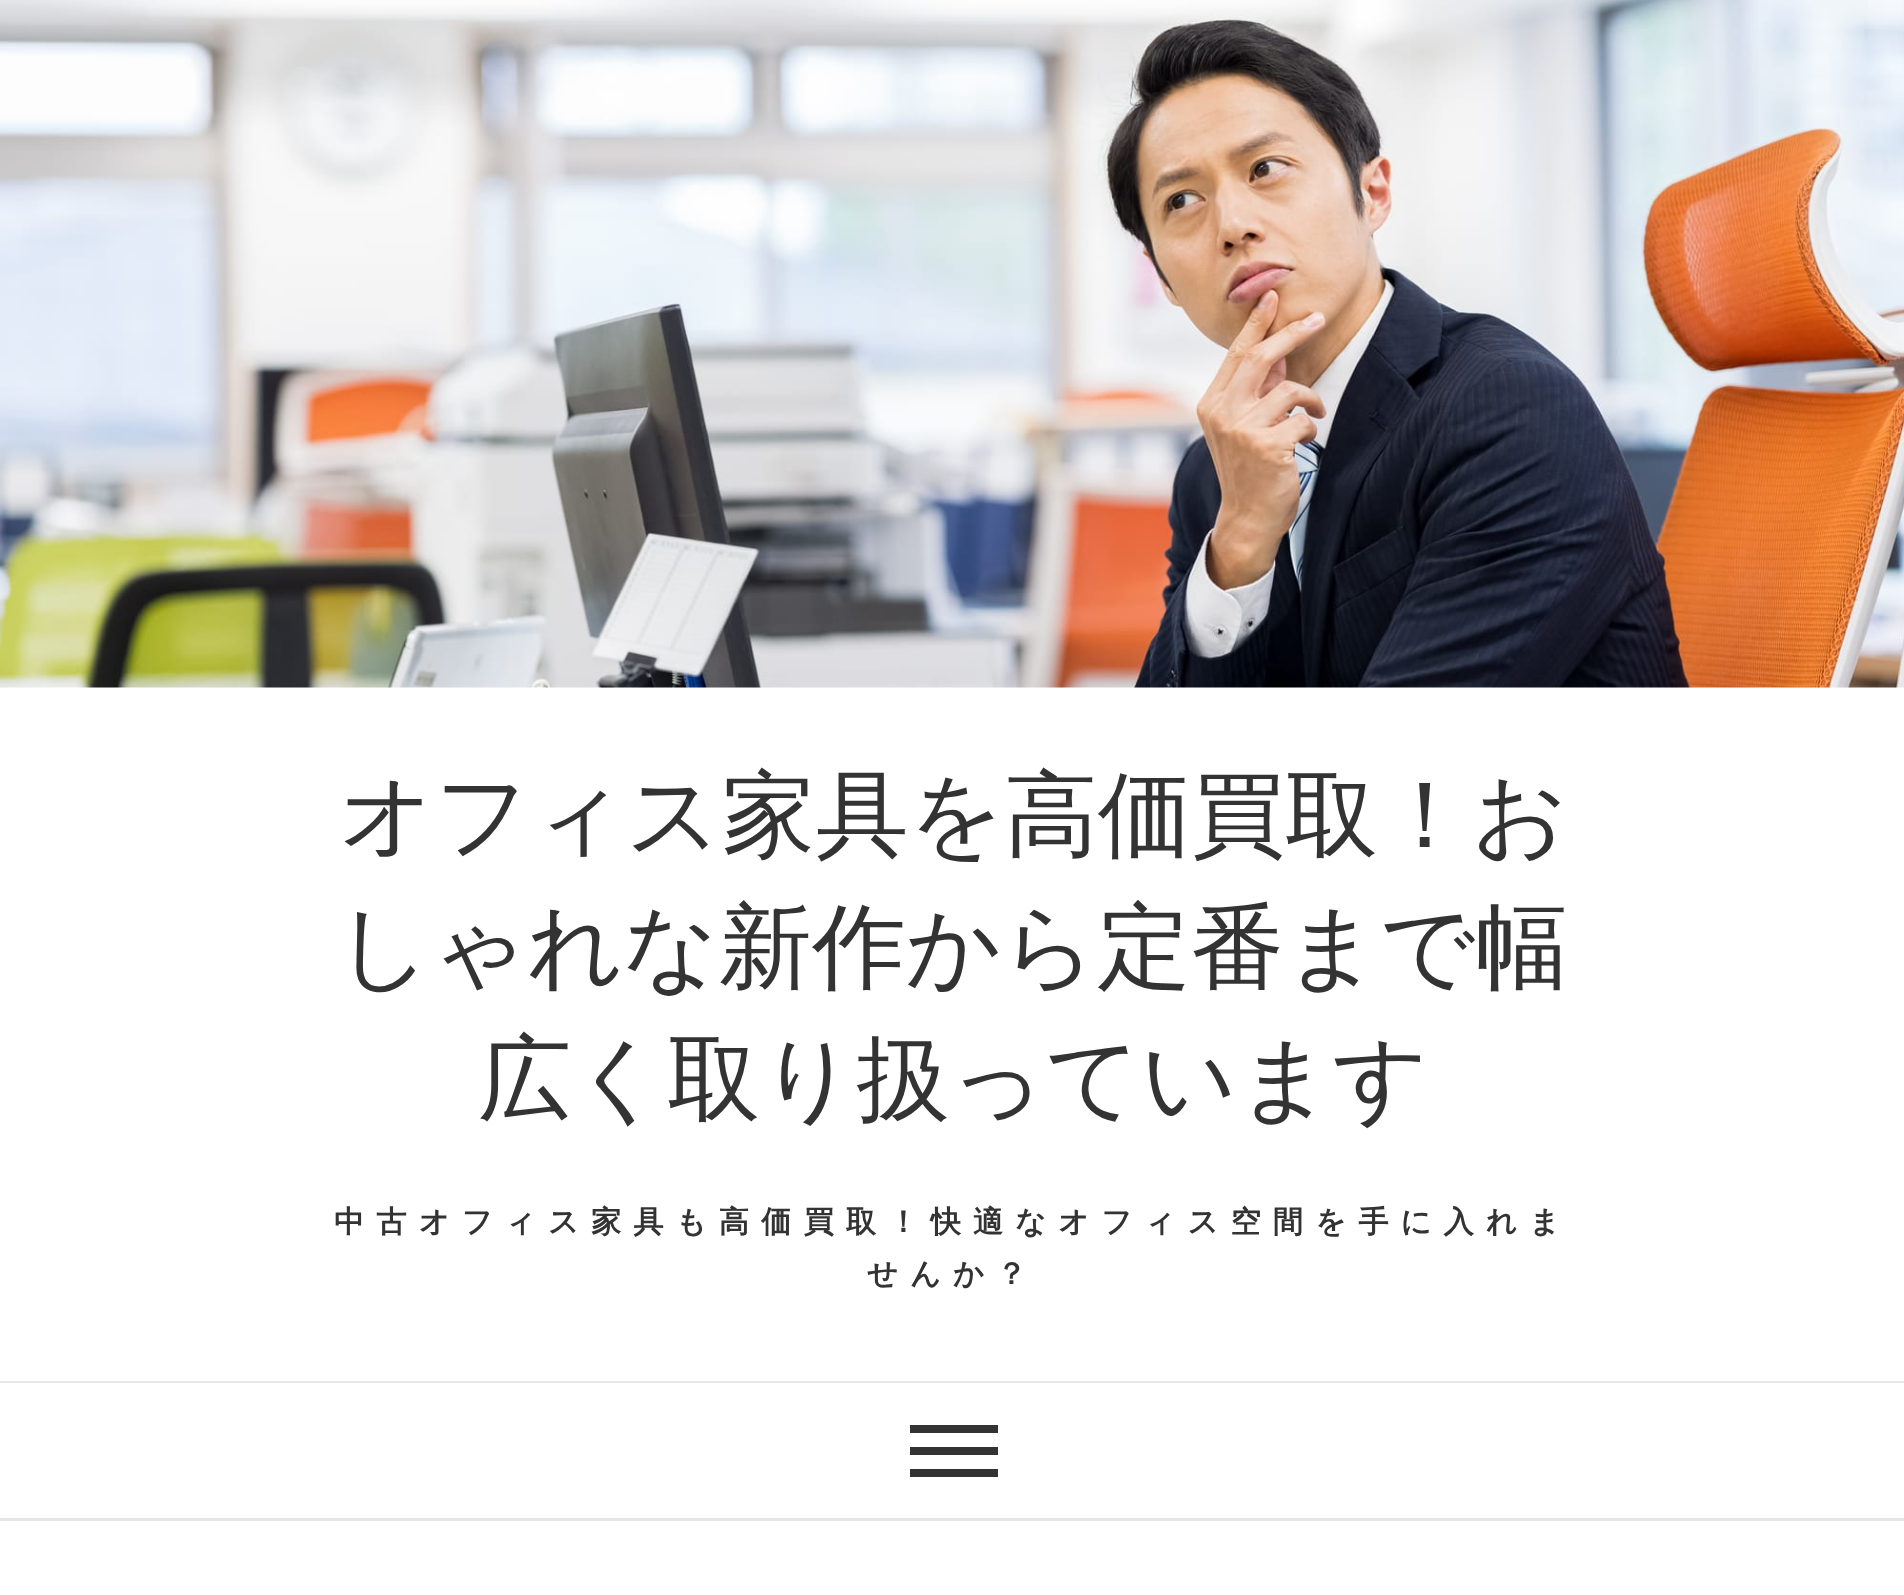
<svg xmlns="http://www.w3.org/2000/svg" width="1904" height="1595">
	<rect width="100%" height="100%" fill="#FFFFFF" />
	<image x="0" y="0" width="1904" height="688" href="assets/img1.png" />
	<rect x="0" y="1381" width="1904" height="2" fill="#E6E6E6" />
	<g font-family="WenQuanYi Zen Hei" font-size="93.5" font-weight="500" fill="#333333">
		<text x="339" y="847">オフィス家具を高価買取！お</text>
		<text x="336" y="979">しゃれな新作から定番まで幅</text>
		<text x="478" y="1111">広く取り扱っています</text>
	</g>
	<g font-family="WenQuanYi Zen Hei" font-size="30.25" font-weight="700" letter-spacing="12.1" fill="#333333">
		<text x="334" y="1232">中古オフィス家具も高価買取！快適なオフィス空間を手に入れま</text>
		<text x="867" y="1284">せんか？</text>
	</g>
	<rect x="0" y="1518" width="1904" height="3" fill="#E6E6E6" />
	<rect x="910" y="1425" width="88" height="8" fill="#333333" />
	<rect x="910" y="1447" width="88" height="8" fill="#333333" />
	<rect x="910" y="1469" width="88" height="8" fill="#333333" />
</svg>
